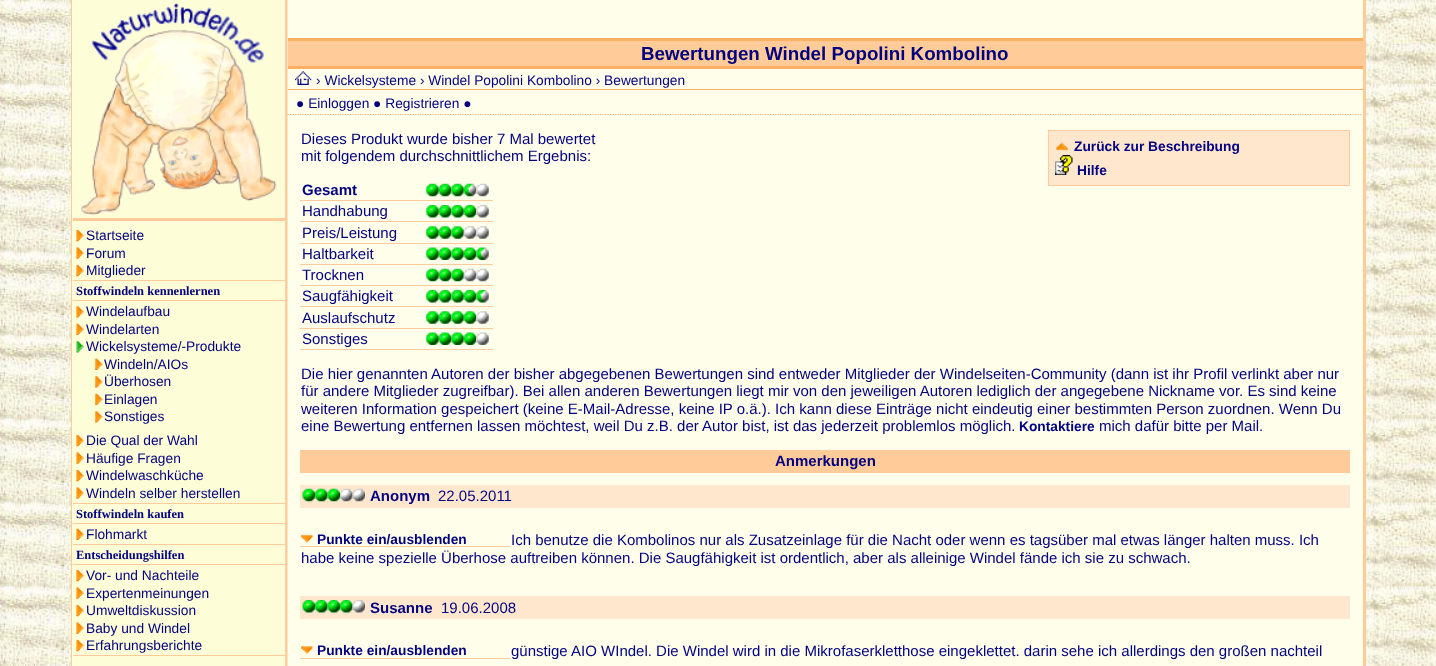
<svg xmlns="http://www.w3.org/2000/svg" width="1436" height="666">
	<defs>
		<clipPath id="clip1"><rect x="300" y="531" width="1050" height="35" /></clipPath>
	</defs>
	<rect width="100%" height="100%" fill="#FFFFFF" />
	<image x="0" y="0" width="1436" height="666" href="assets/img1.png" />
	<rect x="72" y="0" width="1291" height="666" fill="#FEFEEB" />
	<image x="72" y="0" width="216" height="666" href="assets/img2.png" />
	<rect x="1363" y="0" width="3" height="666" fill="#FFCC99" />
	<rect x="71" y="0" width="1" height="666" fill="#FFCC99" />
	<rect x="73" y="218" width="212" height="3" fill="#FFCC99" />
	<image x="81" y="3" width="196" height="212" href="assets/img3.png" />
	<image x="76" y="230" width="8" height="12" href="assets/img4.png" />
	<text x="86" y="240" font-family="Liberation Sans" font-size="13.75" fill="#000080">Startseite</text>
	<image x="76" y="247" width="8" height="12" href="assets/img5.png" />
	<text x="86" y="258" font-family="Liberation Sans" font-size="13.75" fill="#000080">Forum</text>
	<image x="76" y="265" width="8" height="12" href="assets/img4.png" />
	<text x="86" y="275" font-family="Liberation Sans" font-size="13.75" fill="#000080">Mitglieder</text>
	<rect x="273" y="281" width="12" height="19" fill="#FDFDD7" />
	<rect x="73" y="280" width="212" height="1" fill="#FFCC99" />
	<rect x="73" y="300" width="212" height="1" fill="#FFCC99" />
	<text x="76" y="295" font-family="Liberation Serif" font-size="12.5" font-weight="700" fill="#000080">Stoffwindeln kennenlernen</text>
	<image x="76" y="306" width="8" height="12" href="assets/img6.png" />
	<text x="86" y="316" font-family="Liberation Sans" font-size="13.75" fill="#000080">Windelaufbau</text>
	<image x="76" y="323" width="8" height="12" href="assets/img7.png" />
	<text x="86" y="334" font-family="Liberation Sans" font-size="13.75" fill="#000080">Windelarten</text>
	<image x="76" y="341" width="8" height="12" href="assets/img8.png" />
	<text x="86" y="351" font-family="Liberation Sans" font-size="13.75" fill="#000080">Wickelsysteme/-Produkte</text>
	<image x="94" y="358" width="9" height="12" href="assets/img9.png" />
	<text x="104" y="369" font-family="Liberation Sans" font-size="13.75" fill="#000080">Windeln/AIOs</text>
	<image x="94" y="376" width="9" height="12" href="assets/img10.png" />
	<text x="104" y="386" font-family="Liberation Sans" font-size="13.75" fill="#000080">Überhosen</text>
	<image x="94" y="393" width="9" height="12" href="assets/img9.png" />
	<text x="104" y="404" font-family="Liberation Sans" font-size="13.75" fill="#000080">Einlagen</text>
	<image x="94" y="411" width="9" height="12" href="assets/img10.png" />
	<text x="104" y="421" font-family="Liberation Sans" font-size="13.75" fill="#000080">Sonstiges</text>
	<image x="76" y="435" width="8" height="12" href="assets/img4.png" />
	<text x="86" y="445" font-family="Liberation Sans" font-size="13.75" fill="#000080">Die Qual der Wahl</text>
	<image x="76" y="452" width="8" height="12" href="assets/img5.png" />
	<text x="86" y="463" font-family="Liberation Sans" font-size="13.75" fill="#000080">Häufige Fragen</text>
	<image x="76" y="470" width="8" height="12" href="assets/img4.png" />
	<text x="86" y="480" font-family="Liberation Sans" font-size="13.75" fill="#000080">Windelwaschküche</text>
	<image x="76" y="487" width="8" height="12" href="assets/img5.png" />
	<text x="86" y="498" font-family="Liberation Sans" font-size="13.75" fill="#000080">Windeln selber herstellen</text>
	<rect x="273" y="504" width="12" height="19" fill="#FDFDD7" />
	<rect x="73" y="503" width="212" height="1" fill="#FFCC99" />
	<rect x="73" y="523" width="212" height="1" fill="#FFCC99" />
	<text x="76" y="518" font-family="Liberation Serif" font-size="12.5" font-weight="700" fill="#000080">Stoffwindeln kaufen</text>
	<image x="76" y="528" width="8" height="12" href="assets/img7.png" />
	<text x="86" y="539" font-family="Liberation Sans" font-size="13.75" fill="#000080">Flohmarkt</text>
	<rect x="273" y="545" width="12" height="19" fill="#FDFDD7" />
	<rect x="73" y="544" width="212" height="1" fill="#FFCC99" />
	<rect x="73" y="564" width="212" height="1" fill="#FFCC99" />
	<text x="76" y="559" font-family="Liberation Serif" font-size="12.5" font-weight="700" fill="#000080">Entscheidungshilfen</text>
	<image x="76" y="570" width="8" height="12" href="assets/img4.png" />
	<text x="86" y="580" font-family="Liberation Sans" font-size="13.75" fill="#000080">Vor- und Nachteile</text>
	<image x="76" y="587" width="8" height="12" href="assets/img11.png" />
	<text x="86" y="598" font-family="Liberation Sans" font-size="13.75" fill="#000080">Expertenmeinungen</text>
	<image x="76" y="605" width="8" height="12" href="assets/img4.png" />
	<text x="86" y="615" font-family="Liberation Sans" font-size="13.75" fill="#000080">Umweltdiskussion</text>
	<image x="76" y="622" width="8" height="12" href="assets/img5.png" />
	<text x="86" y="633" font-family="Liberation Sans" font-size="13.75" fill="#000080">Baby und Windel</text>
	<image x="76" y="640" width="8" height="12" href="assets/img4.png" />
	<text x="86" y="650" font-family="Liberation Sans" font-size="13.75" fill="#000080">Erfahrungsberichte</text>
	<rect x="273" y="656" width="12" height="10" fill="#FDFDD7" />
	<rect x="73" y="655" width="212" height="1" fill="#FFCC99" />
	<rect x="288" y="41" width="1075" height="25" fill="#FFCC99" />
	<rect x="288" y="38" width="1075" height="3" fill="#FFB062" />
	<rect x="288" y="66" width="1075" height="3" fill="#FFB062" />
	<text x="641" y="60" font-family="Liberation Sans" font-size="18.75" font-weight="700" fill="#000080">Bewertungen Windel Popolini Kombolino</text>
	<rect x="288" y="89" width="1075" height="1" fill="#FFB062" />
	<image x="295" y="71" width="17" height="14" href="assets/img12.png" />
	<text x="316" y="85" font-family="Liberation Sans" font-size="13.75" fill="#000080">› Wickelsysteme › Windel Popolini Kombolino › Bewertungen</text>
	<path d="M287.5 114.5H1362.5" fill="none" stroke="#FFB062" stroke-width="1.2" stroke-dasharray="1.25 1.25" />
	<text x="296" y="108" font-family="Liberation Sans" font-size="13.75" fill="#000080">● Einloggen ● Registrieren ●</text>
	<g font-family="Liberation Sans" font-size="15" fill="#000080">
		<text x="301" y="144">Dieses Produkt wurde bisher 7 Mal bewertet</text>
		<text x="301" y="161">mit folgendem durchschnittlichem Ergebnis:</text>
	</g>
	<rect x="1048.5" y="130.5" width="301" height="55" fill="#FFE7CE" stroke="#FFCC99" />
	<image x="1056" y="142" width="12" height="9" href="assets/img13.png" />
	<text x="1074" y="151" font-family="Liberation Sans" font-size="13.75" font-weight="700" fill="#000080">Zurück zur Beschreibung</text>
	<image x="1055" y="155" width="18" height="20" href="assets/img14.png" />
	<text x="1077" y="175" font-family="Liberation Sans" font-size="13.75" font-weight="700" fill="#000080">Hilfe</text>
	<rect x="300" y="200" width="193" height="1" fill="#FFCC99" />
	<text x="302" y="195" font-family="Liberation Sans" font-size="15" font-weight="700" fill="#000080">Gesamt</text>
	<image x="426" y="183" width="13" height="14" href="assets/img15.png" />
	<image x="438" y="183" width="14" height="14" href="assets/img16.png" />
	<image x="451" y="183" width="13" height="14" href="assets/img17.png" />
	<image x="463" y="183" width="14" height="14" href="assets/img18.png" />
	<image x="476" y="183" width="13" height="14" href="assets/img19.png" />
	<rect x="300" y="221" width="193" height="1" fill="#FFCC99" />
	<text x="302" y="216" font-family="Liberation Sans" font-size="15" fill="#000080">Handhabung</text>
	<image x="426" y="205" width="13" height="13" href="assets/img20.png" />
	<image x="438" y="205" width="14" height="13" href="assets/img21.png" />
	<image x="451" y="205" width="13" height="13" href="assets/img22.png" />
	<image x="463" y="205" width="14" height="13" href="assets/img21.png" />
	<image x="476" y="205" width="13" height="13" href="assets/img23.png" />
	<rect x="300" y="243" width="193" height="1" fill="#FFCC99" />
	<text x="302" y="238" font-family="Liberation Sans" font-size="15" fill="#000080">Preis/Leistung</text>
	<image x="426" y="226" width="13" height="13" href="assets/img24.png" />
	<image x="438" y="226" width="14" height="13" href="assets/img25.png" />
	<image x="451" y="226" width="13" height="13" href="assets/img26.png" />
	<image x="463" y="226" width="14" height="13" href="assets/img27.png" />
	<image x="476" y="226" width="13" height="13" href="assets/img28.png" />
	<rect x="300" y="264" width="193" height="1" fill="#FFCC99" />
	<text x="302" y="259" font-family="Liberation Sans" font-size="15" fill="#000080">Haltbarkeit</text>
	<image x="426" y="247" width="13" height="13" href="assets/img29.png" />
	<image x="438" y="247" width="14" height="13" href="assets/img30.png" />
	<image x="451" y="247" width="13" height="13" href="assets/img31.png" />
	<image x="463" y="247" width="14" height="13" href="assets/img30.png" />
	<image x="476" y="247" width="13" height="13" href="assets/img32.png" />
	<rect x="300" y="285" width="193" height="1" fill="#FFCC99" />
	<text x="302" y="280" font-family="Liberation Sans" font-size="15" fill="#000080">Trocknen</text>
	<image x="426" y="268" width="13" height="14" href="assets/img15.png" />
	<image x="438" y="268" width="14" height="14" href="assets/img16.png" />
	<image x="451" y="268" width="13" height="14" href="assets/img17.png" />
	<image x="463" y="268" width="14" height="14" href="assets/img33.png" />
	<image x="476" y="268" width="13" height="14" href="assets/img19.png" />
	<rect x="300" y="306" width="193" height="1" fill="#FFCC99" />
	<text x="302" y="301" font-family="Liberation Sans" font-size="15" fill="#000080">Saugfähigkeit</text>
	<image x="426" y="290" width="13" height="13" href="assets/img34.png" />
	<image x="438" y="290" width="14" height="13" href="assets/img35.png" />
	<image x="451" y="290" width="13" height="13" href="assets/img36.png" />
	<image x="463" y="290" width="14" height="13" href="assets/img35.png" />
	<image x="476" y="290" width="13" height="13" href="assets/img37.png" />
	<rect x="300" y="328" width="193" height="1" fill="#FFCC99" />
	<text x="302" y="323" font-family="Liberation Sans" font-size="15" fill="#000080">Auslaufschutz</text>
	<image x="426" y="311" width="13" height="13" href="assets/img24.png" />
	<image x="438" y="311" width="14" height="13" href="assets/img25.png" />
	<image x="451" y="311" width="13" height="13" href="assets/img26.png" />
	<image x="463" y="311" width="14" height="13" href="assets/img25.png" />
	<image x="476" y="311" width="13" height="13" href="assets/img38.png" />
	<rect x="300" y="349" width="193" height="1" fill="#FFCC99" />
	<text x="302" y="344" font-family="Liberation Sans" font-size="15" fill="#000080">Sonstiges</text>
	<image x="426" y="332" width="13" height="13" href="assets/img29.png" />
	<image x="438" y="332" width="14" height="13" href="assets/img30.png" />
	<image x="451" y="332" width="13" height="13" href="assets/img31.png" />
	<image x="463" y="332" width="14" height="13" href="assets/img30.png" />
	<image x="476" y="332" width="13" height="13" href="assets/img39.png" />
	<g font-family="Liberation Sans" font-size="15" fill="#000080">
		<text x="301" y="379">Die hier genannten Autoren der bisher abgegebenen Bewertungen sind entweder Mitglieder der Windelseiten-Community (dann ist ihr Profil verlinkt aber nur</text>
		<text x="301" y="396">für andere Mitglieder zugreifbar). Bei allen anderen Bewertungen liegt mir von den jeweiligen Autoren lediglich der angegebene Nickname vor. Es sind keine</text>
		<text x="301" y="414">weiteren Information gespeichert (keine E-Mail-Adresse, keine IP o.ä.). Ich kann diese Einträge nicht eindeutig einer bestimmten Person zuordnen. Wenn Du</text>
		<text x="301" y="431">eine Bewertung entfernen lassen möchtest, weil Du z.B. der Autor bist, ist das jederzeit problemlos möglich.</text>
	</g>
	<text x="1019" y="431" font-family="Liberation Sans" font-size="13.75" font-weight="700" fill="#000080">Kontaktiere</text>
	<text x="1099" y="431" font-family="Liberation Sans" font-size="15" fill="#000080">mich dafür bitte per Mail.</text>
	<rect x="300" y="450" width="1050" height="23" fill="#FFCC99" />
	<text x="775" y="466" font-family="Liberation Sans" font-size="15" font-weight="700" fill="#000080">Anmerkungen</text>
	<rect x="300" y="485" width="1050" height="23" fill="#FFE7CE" />
	<image x="302" y="488" width="13" height="14" href="assets/img40.png" />
	<image x="315" y="488" width="13" height="14" href="assets/img41.png" />
	<image x="327" y="488" width="13" height="14" href="assets/img42.png" />
	<image x="340" y="488" width="13" height="14" href="assets/img43.png" />
	<image x="352" y="488" width="13" height="14" href="assets/img44.png" />
	<text x="370" y="501" font-family="Liberation Sans" font-size="15" font-weight="700" fill="#000080">Anonym</text>
	<text x="438" y="501" font-family="Liberation Sans" font-size="15" fill="#000080">22.05.2011</text>
	<rect x="300" y="546" width="210" height="1" fill="#FFCC99" />
	<image x="301" y="534" width="12" height="9" href="assets/img45.png" />
	<text x="317" y="544" font-family="Liberation Sans" font-size="13.75" font-weight="700" fill="#000080">Punkte ein/ausblenden</text>
	<text x="511" y="545" font-family="Liberation Sans" font-size="15" fill="#000080">Ich benutze die Kombolinos nur als Zusatzeinlage für die Nacht oder wenn es tagsüber mal etwas länger halten muss. Ich</text>
	<g clip-path="url(#clip1)">
		<text x="301" y="563" font-family="Liberation Sans" font-size="15" fill="#000080">habe keine spezielle Überhose auftreiben können. Die Saugfähigkeit ist ordentlich, aber als alleinige Windel fände ich sie zu schwach.</text>
	</g>
	<rect x="300" y="596" width="1050" height="23" fill="#FFE7CE" />
	<image x="302" y="600" width="13" height="13" href="assets/img46.png" />
	<image x="315" y="600" width="13" height="13" href="assets/img47.png" />
	<image x="327" y="600" width="13" height="13" href="assets/img48.png" />
	<image x="340" y="600" width="13" height="13" href="assets/img47.png" />
	<image x="352" y="600" width="13" height="13" href="assets/img49.png" />
	<text x="370" y="613" font-family="Liberation Sans" font-size="15" font-weight="700" fill="#000080">Susanne</text>
	<text x="441" y="613" font-family="Liberation Sans" font-size="15" fill="#000080">19.06.2008</text>
	<rect x="300" y="658" width="210" height="1" fill="#FFCC99" />
	<image x="301" y="646" width="12" height="8" href="assets/img50.png" />
	<text x="317" y="655" font-family="Liberation Sans" font-size="13.75" font-weight="700" fill="#000080">Punkte ein/ausblenden</text>
	<text x="511" y="656" font-family="Liberation Sans" font-size="15" fill="#000080">günstige AIO WIndel. Die Windel wird in die Mikrofaserkletthose eingeklettet. darin sehe ich allerdings den großen nachteil</text>
</svg>
